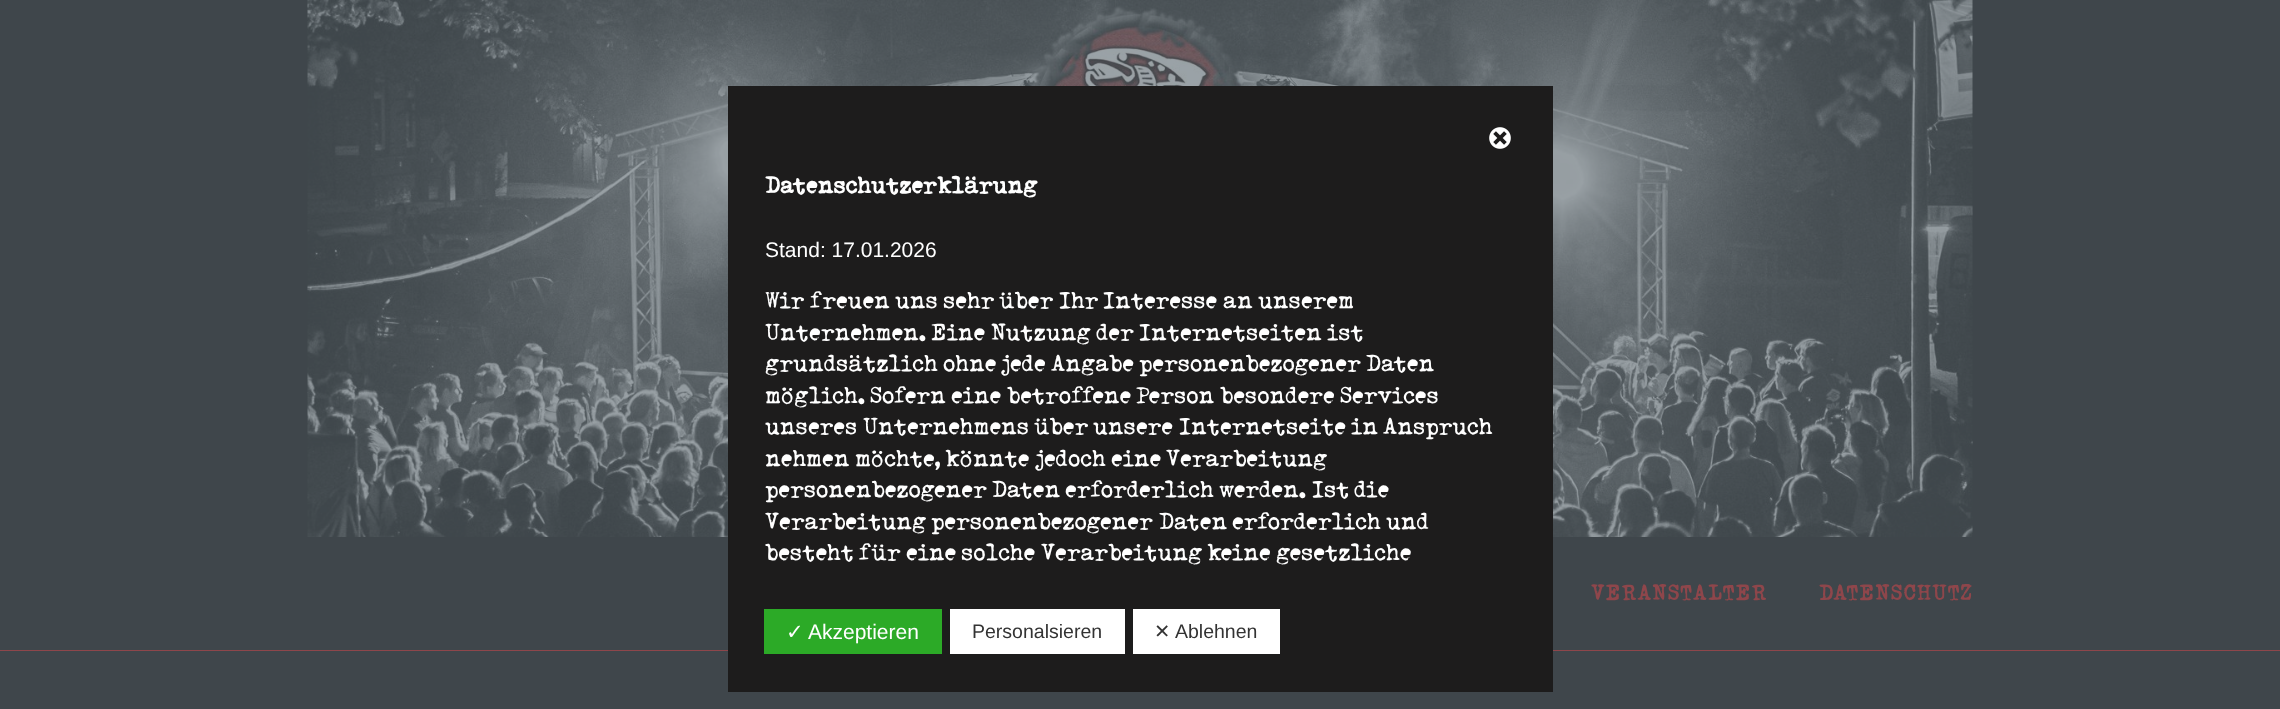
<svg xmlns="http://www.w3.org/2000/svg" width="2280" height="709">
	<rect width="100%" height="100%" fill="#3F464B" />
	<image x="307" y="0" width="1666" height="537" href="assets/img2.png" />
	<rect x="0" y="650" width="2280" height="1" fill="#8E464B" />
	<rect x="728" y="86" width="825" height="606" fill="#1D1C1C" />
	<image x="1489" y="127" width="22" height="22" href="assets/img1.png" />
	<text x="765" y="194" font-family="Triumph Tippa" font-size="21" font-weight="700" fill="#FFFFFF">Datenschutzerklärung</text>
	<text x="765" y="257" font-family="Liberation Sans" font-size="21" fill="#FFFFFF">Stand: 17.01.2026</text>
	<g font-family="Triumph Tippa" font-size="21" fill="#FFFFFF">
		<text x="765" y="309">Wir</text>
		<text x="810" y="309">freuen</text>
		<text x="895" y="309">uns</text>
		<text x="943" y="309">sehr</text>
		<text x="999" y="309">über</text>
		<text x="1059" y="309">Ihr</text>
		<text x="1103" y="309">Interesse</text>
		<text x="1223" y="309">an</text>
		<text x="1258" y="309">unserem</text>
		<text x="765" y="341">Unternehmen.</text>
		<text x="931" y="341">Eine</text>
		<text x="991" y="341">Nutzung</text>
		<text x="1096" y="341">der</text>
		<text x="1139" y="341">Internetseiten</text>
		<text x="1327" y="341">ist</text>
		<text x="765" y="372">grundsätzlich</text>
		<text x="943" y="372">ohne</text>
		<text x="1001" y="372">jede</text>
		<text x="1051" y="372">Angabe</text>
		<text x="1139" y="372">personenbezogener</text>
		<text x="1366" y="372">Daten</text>
		<text x="765" y="404">möglich.</text>
		<text x="870" y="404">Sofern</text>
		<text x="951" y="404">eine</text>
		<text x="1007" y="404">betroffene</text>
		<text x="1136" y="404">Person</text>
		<text x="1220" y="404">besondere</text>
		<text x="1340" y="404">Services</text>
		<text x="765" y="435">unseres</text>
		<text x="863" y="435">Unternehmens</text>
		<text x="1034" y="435">über</text>
		<text x="1093" y="435">unsere</text>
		<text x="1179" y="435">Internetseite</text>
		<text x="1351" y="435">in</text>
		<text x="1383" y="435">Anspruch</text>
		<text x="765" y="467">nehmen</text>
		<text x="855" y="467">möchte,</text>
		<text x="945" y="467">könnte</text>
		<text x="1035" y="467">jedoch</text>
		<text x="1111" y="467">eine</text>
		<text x="1166" y="467">Verarbeitung</text>
		<text x="765" y="498">personenbezogener</text>
		<text x="992" y="498">Daten</text>
		<text x="1065" y="498">erforderlich</text>
		<text x="1219" y="498">werden.</text>
		<text x="1312" y="498">Ist</text>
		<text x="1354" y="498">die</text>
		<text x="765" y="530">Verarbeitung</text>
		<text x="931" y="530">personenbezogener</text>
		<text x="1159" y="530">Daten</text>
		<text x="1232" y="530">erforderlich</text>
		<text x="1386" y="530">und</text>
		<text x="765" y="561">besteht</text>
		<text x="859" y="561">für</text>
		<text x="906" y="561">eine</text>
		<text x="961" y="561">solche</text>
		<text x="1041" y="561">Verarbeitung</text>
		<text x="1207" y="561">keine</text>
		<text x="1276" y="561">gesetzliche</text>
	</g>
	<rect x="764" y="609" width="178" height="45" fill="#2CAA27" />
	<text x="786" y="639" font-family="DejaVu Sans" font-size="21" fill="#FFFFFF">✓</text>
	<text x="808" y="639" font-family="Liberation Sans" font-size="21" fill="#FFFFFF">Akzeptieren</text>
	<rect x="950" y="609" width="175" height="45" fill="#FFFFFF" />
	<text x="972" y="638" font-family="Liberation Sans" font-size="19.5" fill="#333333">Personalsieren</text>
	<rect x="1133" y="609" width="147" height="45" fill="#FFFFFF" />
	<text x="1154" y="638" font-family="DejaVu Sans" font-size="19.5" fill="#333333">✕</text>
	<text x="1175" y="638" font-family="Liberation Sans" font-size="19.5" fill="#333333">Ablehnen</text>
	<g font-family="Triumph Tippa" font-size="19.5" font-weight="700" letter-spacing="1.5" fill="#8E464B">
		<text x="1591" y="601">VERANSTALTER</text>
		<text x="1819" y="601">DATENSCHUTZ</text>
	</g>
</svg>
